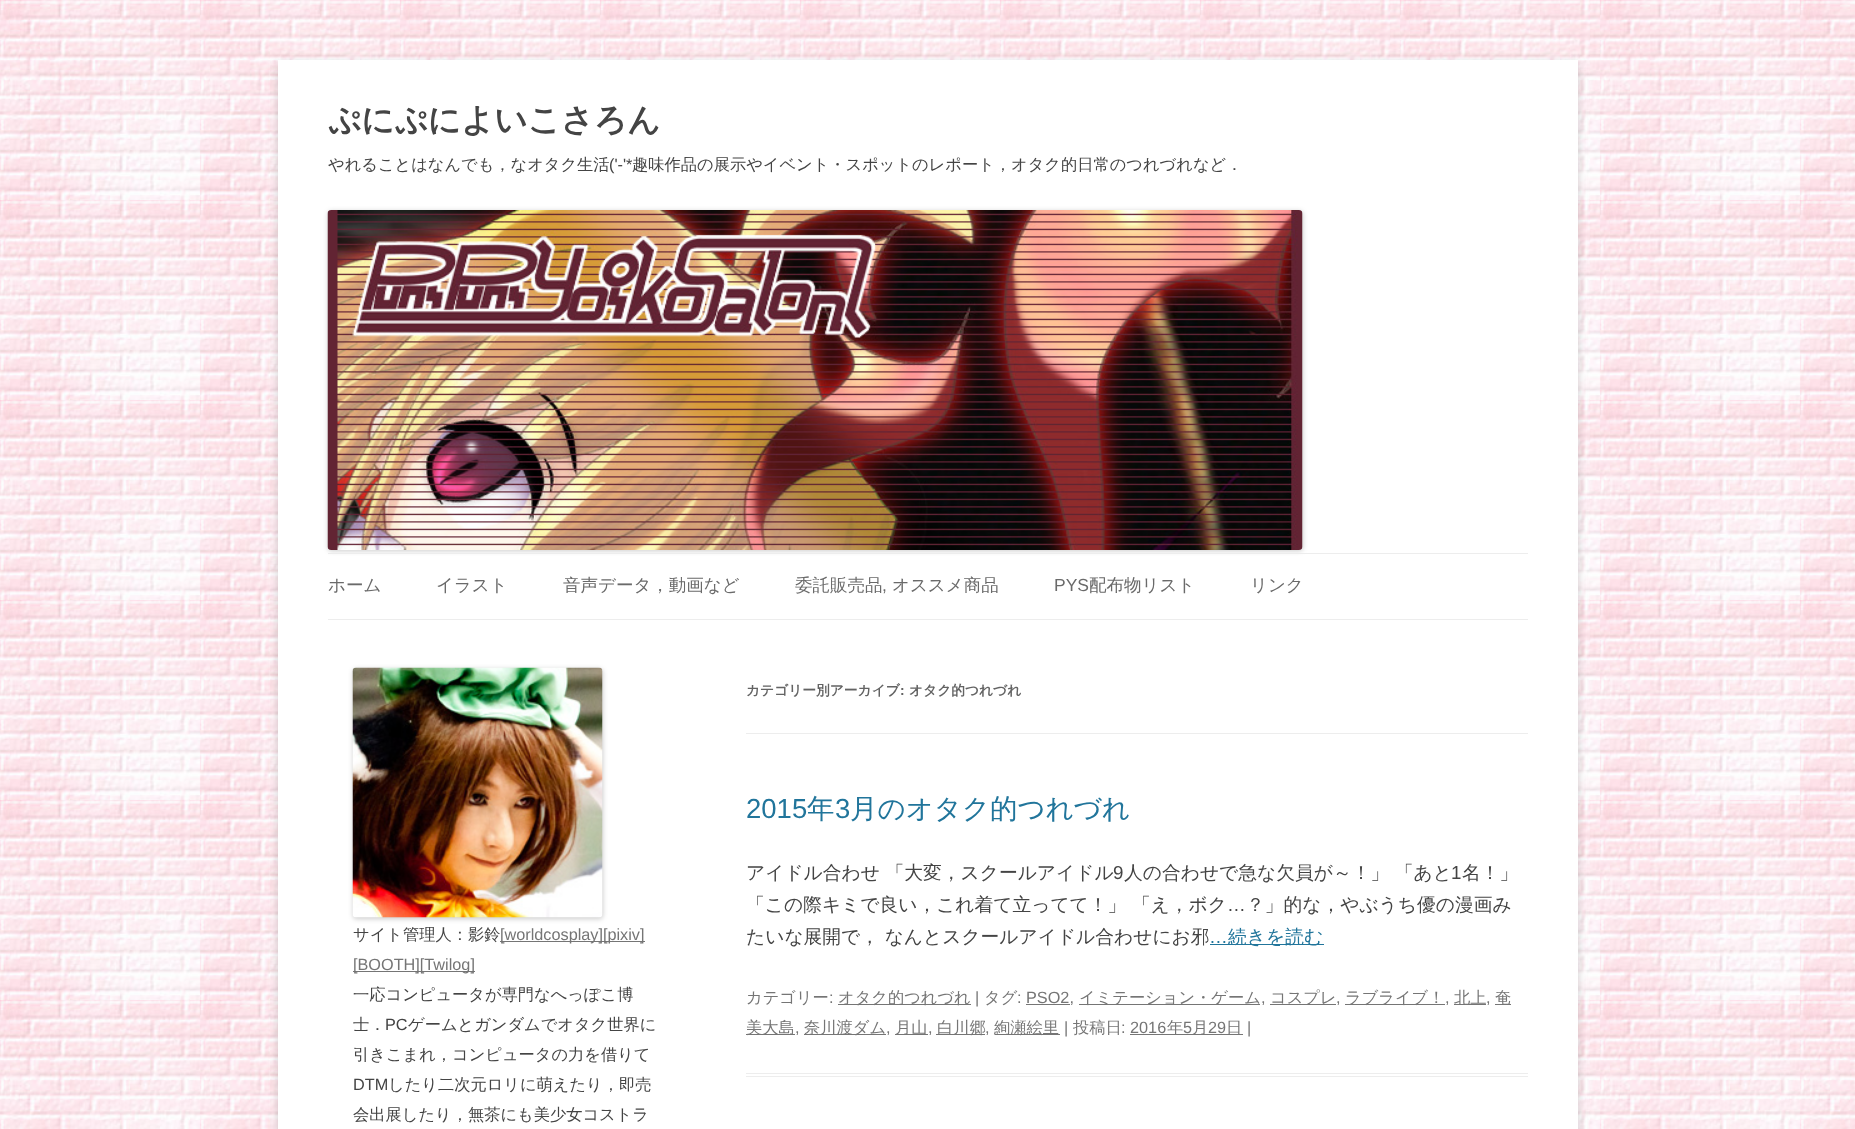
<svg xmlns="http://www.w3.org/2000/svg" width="1855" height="1129">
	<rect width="100%" height="100%" fill="#FFFFFF" />
	<image x="0" y="0" width="1855" height="1129" href="assets/img1.png" />
	<rect x="278" y="63" width="1300" height="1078" fill="#646464" fill-opacity="0.3" filter="blur(4px)" />
	<rect x="278" y="60" width="1300" height="1069" fill="#FFFFFF" />
	<text x="328" y="131" font-family="WenQuanYi Zen Hei" font-size="32.5" font-weight="700" fill="#444444">ぷにぷによいこさろん</text>
	<text x="328" y="170" font-family="WenQuanYi Zen Hei" font-size="16.25" font-weight="500" fill="#444444">やれることはなんでも，なオタク生活</text>
	<text x="609" y="170" font-family="Liberation Sans" font-size="16.25" fill="#444444">('-'*</text>
	<text x="632" y="170" font-family="WenQuanYi Zen Hei" font-size="16.25" font-weight="500" fill="#444444">趣味作品の展示やイベント・スポットのレポート，オタク的日常のつれづれなど．</text>
	<rect x="328" y="211" width="975" height="340" rx="4" fill="#000000" fill-opacity="0.2" filter="blur(2.5px)" />
	<image x="327" y="210" width="976" height="340" href="assets/img2.png" />
	<rect x="328" y="553" width="1200" height="1" fill="#EDEDED" />
	<rect x="328" y="619" width="1200" height="1" fill="#EDEDED" />
	<g font-family="WenQuanYi Zen Hei" font-size="17.5" font-weight="500" fill="#6A6A6A">
		<text x="328" y="591">ホーム</text>
		<text x="436" y="591">イラスト</text>
		<text x="563" y="591">音声データ，動画など</text>
		<text x="795" y="591">委託販売品</text>
	</g>
	<text x="882" y="591" font-family="Liberation Sans" font-size="17.5" fill="#6A6A6A">,</text>
	<text x="892" y="591" font-family="WenQuanYi Zen Hei" font-size="17.5" font-weight="500" fill="#6A6A6A">オススメ商品</text>
	<text x="1054" y="591" font-family="Liberation Sans" font-size="17.5" fill="#6A6A6A">PYS</text>
	<g font-family="WenQuanYi Zen Hei" font-size="17.5" font-weight="500" fill="#6A6A6A">
		<text x="1089" y="591">配布物リスト</text>
		<text x="1250" y="591">リンク</text>
	</g>
	<rect x="353" y="669" width="250" height="250" rx="4" fill="#000000" fill-opacity="0.2" filter="blur(2.5px)" />
	<image x="352" y="667" width="251" height="251" href="assets/img3.png" />
	<text x="353" y="940" font-family="WenQuanYi Zen Hei" font-size="16.25" font-weight="500" fill="#444444">サイト管理人：影鈴</text>
	<rect x="500" y="941" width="145" height="1" fill="#757575" />
	<text x="500" y="940" font-family="Liberation Sans" font-size="16.25" fill="#757575">[worldcosplay][pixiv]</text>
	<rect x="353" y="971" width="122" height="1" fill="#757575" />
	<text x="353" y="970" font-family="Liberation Sans" font-size="16.25" fill="#757575">[BOOTH][Twilog]</text>
	<g font-family="WenQuanYi Zen Hei" font-size="16.25" font-weight="500" fill="#444444">
		<text x="353" y="1000">一応コンピュータが専門なへっぽこ博</text>
		<text x="353" y="1030">士．</text>
	</g>
	<text x="385" y="1030" font-family="Liberation Sans" font-size="16.25" fill="#444444">PC</text>
	<g font-family="WenQuanYi Zen Hei" font-size="16.25" font-weight="500" fill="#444444">
		<text x="408" y="1030">ゲームとガンダムでオタク世界に</text>
		<text x="353" y="1060">引きこまれ，コンピュータの力を借りて</text>
	</g>
	<text x="353" y="1090" font-family="Liberation Sans" font-size="16.25" fill="#444444">DTM</text>
	<g font-family="WenQuanYi Zen Hei" font-size="16.25" font-weight="500" fill="#444444">
		<text x="388" y="1090">したり二次元ロリに萌えたり，即売</text>
		<text x="353" y="1120">会出展したり，無茶にも美少女コストラ</text>
	</g>
	<rect x="746" y="733" width="782" height="1" fill="#EDEDED" />
	<text x="746" y="695" font-family="WenQuanYi Zen Hei" font-size="13.75" font-weight="700" fill="#636363">カテゴリー別アーカイブ</text>
	<text x="900" y="695" font-family="Liberation Sans" font-size="13.75" font-weight="700" fill="#636363">:</text>
	<text x="909" y="695" font-family="WenQuanYi Zen Hei" font-size="13.75" font-weight="700" fill="#636363">オタク的つれづれ</text>
	<rect x="746" y="1073" width="782" height="1" fill="#EDEDED" />
	<rect x="746" y="1076" width="782" height="1" fill="#EDEDED" />
	<text x="746" y="818" font-family="Liberation Sans" font-size="27.5" fill="#21759B">2015</text>
	<text x="807" y="818" font-family="WenQuanYi Zen Hei" font-size="27.5" font-weight="500" fill="#21759B">年</text>
	<text x="835" y="818" font-family="Liberation Sans" font-size="27.5" fill="#21759B">3</text>
	<text x="850" y="818" font-family="WenQuanYi Zen Hei" font-size="27.5" font-weight="500" fill="#21759B">月のオタク的つれづれ</text>
	<text x="746" y="879" font-family="WenQuanYi Zen Hei" font-size="18.75" font-weight="500" fill="#444444">アイドル合わせ 「大変，スクールアイドル</text>
	<text x="1113" y="879" font-family="Liberation Sans" font-size="18.75" fill="#444444">9</text>
	<text x="1124" y="879" font-family="WenQuanYi Zen Hei" font-size="18.75" font-weight="500" fill="#444444">人の合わせで急な欠員が～！」 「あと</text>
	<text x="1451" y="879" font-family="Liberation Sans" font-size="18.75" fill="#444444">1</text>
	<g font-family="WenQuanYi Zen Hei" font-size="18.75" font-weight="500" fill="#444444">
		<text x="1462" y="879">名！」</text>
		<text x="746" y="911">「この際キミで良い，これ着て立ってて！」 「え，ボク</text>
	</g>
	<text x="1227" y="911" font-family="Liberation Sans" font-size="18.75" fill="#444444">…</text>
	<g font-family="WenQuanYi Zen Hei" font-size="18.75" font-weight="500" fill="#444444">
		<text x="1246" y="911">？」的な，やぶうち優の漫画み</text>
		<text x="746" y="943">たいな展開で， なんとスクールアイドル合わせにお邪</text>
	</g>
	<text x="1209" y="943" font-family="Liberation Sans" font-size="18.75" fill="#21759B">…</text>
	<rect x="1210" y="944" width="114" height="1" fill="#21759B" />
	<text x="1228" y="943" font-family="WenQuanYi Zen Hei" font-size="18.75" font-weight="500" fill="#21759B">続きを読む</text>
	<text x="746" y="1003" font-family="WenQuanYi Zen Hei" font-size="16.25" font-weight="500" fill="#757575">カテゴリー</text>
	<text x="829" y="1003" font-family="Liberation Sans" font-size="16.25" fill="#757575">:</text>
	<rect x="838" y="1004" width="133" height="1" fill="#757575" />
	<text x="838" y="1003" font-family="WenQuanYi Zen Hei" font-size="16.25" font-weight="500" fill="#757575">オタク的つれづれ</text>
	<text x="975" y="1003" font-family="Liberation Sans" font-size="16.25" fill="#757575">|</text>
	<text x="984" y="1003" font-family="WenQuanYi Zen Hei" font-size="16.25" font-weight="500" fill="#757575">タグ</text>
	<text x="1017" y="1003" font-family="Liberation Sans" font-size="16.25" fill="#757575">: PSO2,</text>
	<rect x="1079" y="1004" width="181" height="1" fill="#757575" />
	<text x="1079" y="1003" font-family="WenQuanYi Zen Hei" font-size="16.25" font-weight="500" fill="#757575">イミテーション・ゲーム</text>
	<rect x="1270" y="1004" width="66" height="1" fill="#757575" />
	<text x="1270" y="1003" font-family="WenQuanYi Zen Hei" font-size="16.25" font-weight="500" fill="#757575">コスプレ</text>
	<rect x="1345" y="1004" width="100" height="1" fill="#757575" />
	<text x="1345" y="1003" font-family="WenQuanYi Zen Hei" font-size="16.25" font-weight="500" fill="#757575">ラブライブ！</text>
	<rect x="1454" y="1004" width="32" height="1" fill="#757575" />
	<text x="1454" y="1003" font-family="WenQuanYi Zen Hei" font-size="16.25" font-weight="500" fill="#757575">北上</text>
	<rect x="1495" y="1004" width="16" height="1" fill="#757575" />
	<text x="1495" y="1003" font-family="WenQuanYi Zen Hei" font-size="16.25" font-weight="500" fill="#757575">奄</text>
	<rect x="1026" y="1004" width="44" height="1" fill="#757575" />
	<g font-family="Liberation Sans" font-size="16.25" fill="#757575">
		<text x="1261" y="1003">,</text>
		<text x="1336" y="1003">,</text>
		<text x="1445" y="1003">,</text>
		<text x="1486" y="1003">,</text>
	</g>
	<rect x="746" y="1034" width="49" height="1" fill="#757575" />
	<text x="746" y="1033" font-family="WenQuanYi Zen Hei" font-size="16.25" font-weight="500" fill="#757575">美大島</text>
	<text x="795" y="1033" font-family="Liberation Sans" font-size="16.25" fill="#757575">,</text>
	<rect x="804" y="1034" width="82" height="1" fill="#757575" />
	<text x="804" y="1033" font-family="WenQuanYi Zen Hei" font-size="16.25" font-weight="500" fill="#757575">奈川渡ダム</text>
	<text x="886" y="1033" font-family="Liberation Sans" font-size="16.25" fill="#757575">,</text>
	<rect x="895" y="1034" width="33" height="1" fill="#757575" />
	<text x="895" y="1033" font-family="WenQuanYi Zen Hei" font-size="16.25" font-weight="500" fill="#757575">月山</text>
	<text x="928" y="1033" font-family="Liberation Sans" font-size="16.25" fill="#757575">,</text>
	<rect x="936" y="1034" width="49" height="1" fill="#757575" />
	<text x="937" y="1033" font-family="WenQuanYi Zen Hei" font-size="16.25" font-weight="500" fill="#757575">白川郷</text>
	<text x="985" y="1033" font-family="Liberation Sans" font-size="16.25" fill="#757575">,</text>
	<rect x="995" y="1034" width="65" height="1" fill="#757575" />
	<text x="994" y="1033" font-family="WenQuanYi Zen Hei" font-size="16.25" font-weight="500" fill="#757575">絢瀬絵里</text>
	<text x="1064" y="1033" font-family="Liberation Sans" font-size="16.25" fill="#757575">|</text>
	<text x="1073" y="1033" font-family="WenQuanYi Zen Hei" font-size="16.25" font-weight="500" fill="#757575">投稿日</text>
	<text x="1121" y="1033" font-family="Liberation Sans" font-size="16.25" fill="#757575">: 2016</text>
	<rect x="1130" y="1034" width="113" height="1" fill="#757575" />
	<text x="1167" y="1033" font-family="WenQuanYi Zen Hei" font-size="16.25" font-weight="500" fill="#757575">年</text>
	<text x="1183" y="1033" font-family="Liberation Sans" font-size="16.25" fill="#757575">5</text>
	<text x="1192" y="1033" font-family="WenQuanYi Zen Hei" font-size="16.25" font-weight="500" fill="#757575">月</text>
	<text x="1208" y="1033" font-family="Liberation Sans" font-size="16.25" fill="#757575">29</text>
	<text x="1226" y="1033" font-family="WenQuanYi Zen Hei" font-size="16.25" font-weight="500" fill="#757575">日</text>
	<text x="1247" y="1033" font-family="Liberation Sans" font-size="16.25" fill="#757575">|</text>
</svg>
